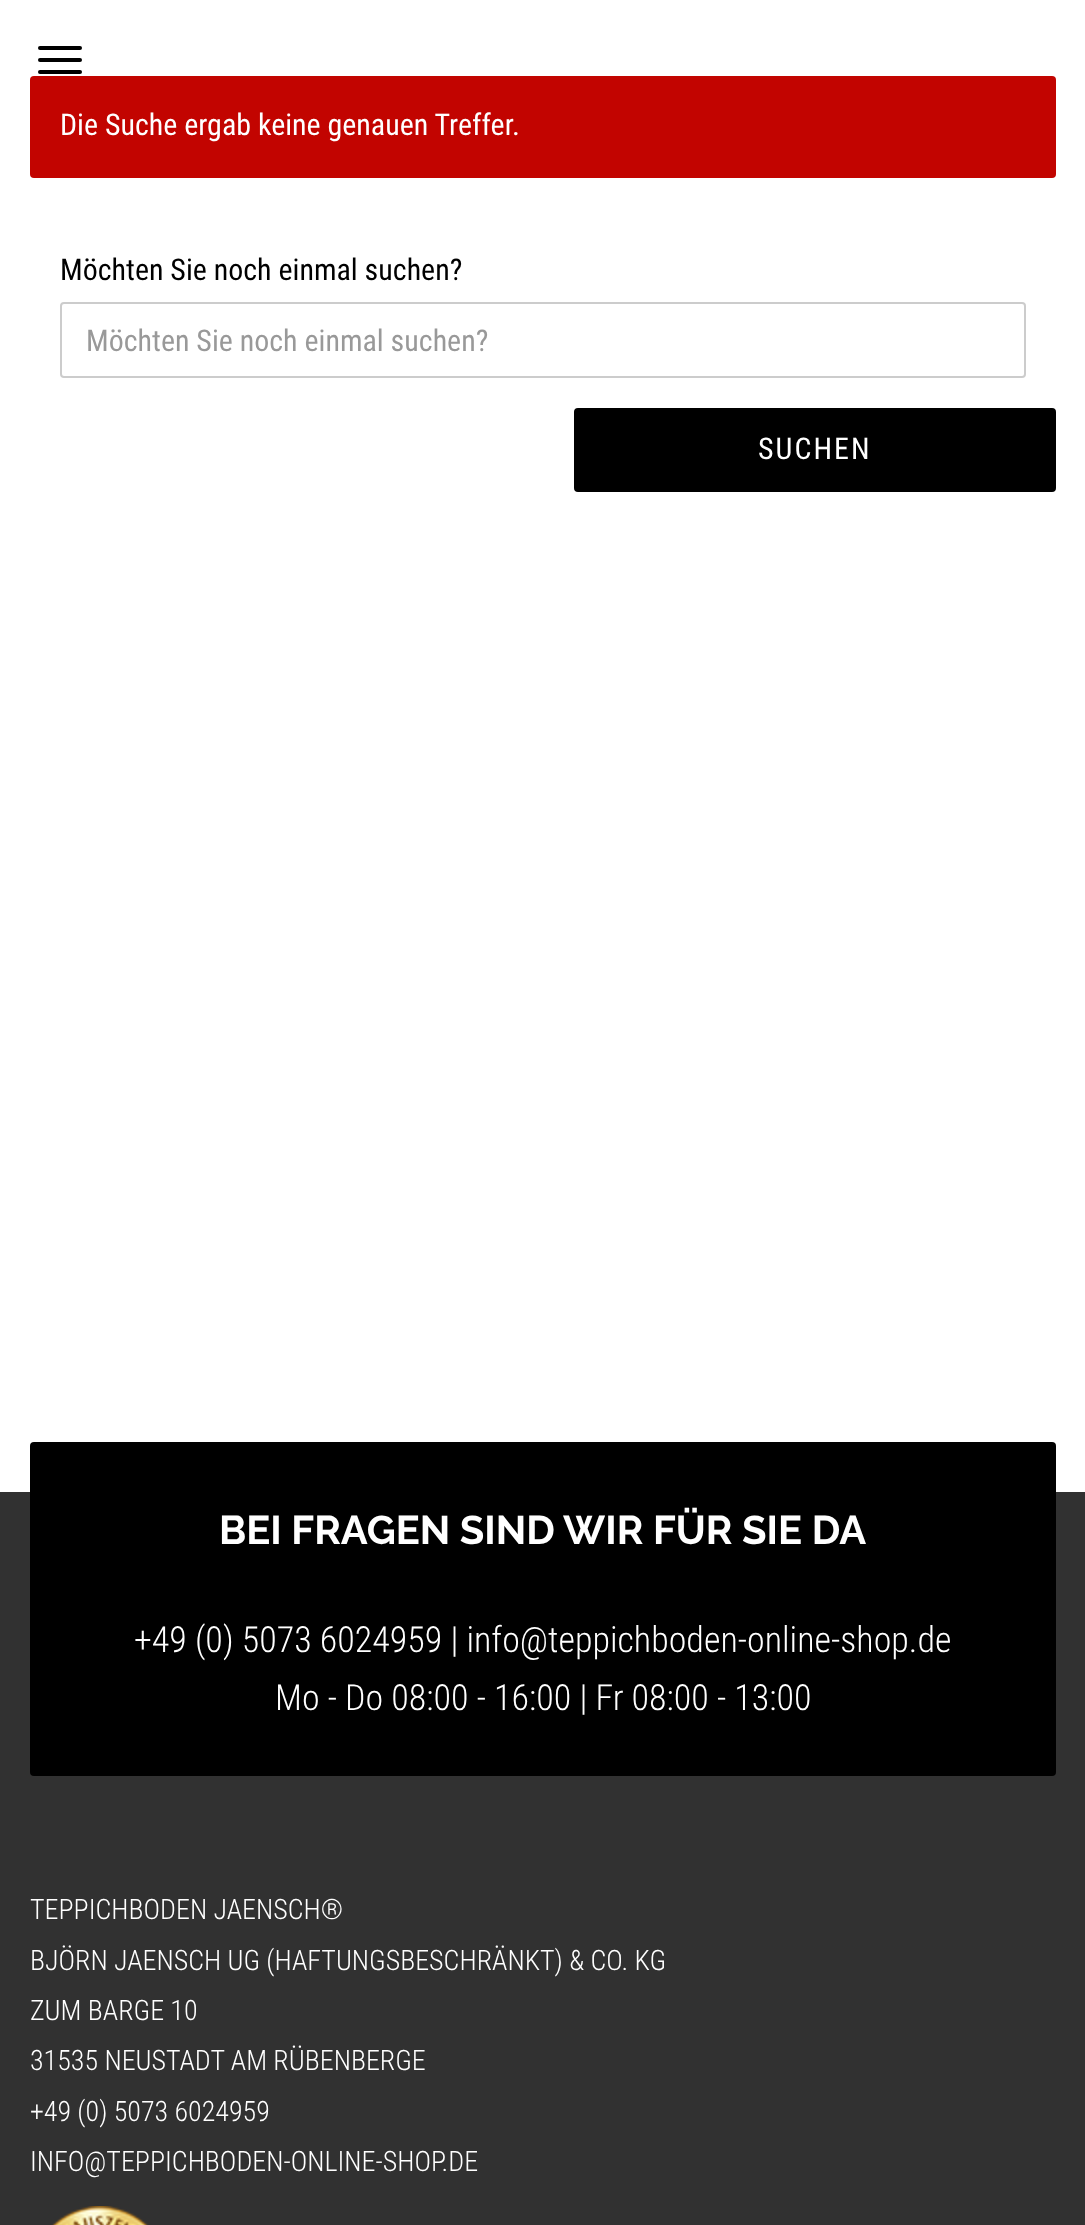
<svg xmlns="http://www.w3.org/2000/svg" width="1085" height="2225">
	<rect width="100%" height="100%" fill="#FFFFFF" />
	<rect x="38" y="58" width="44" height="4" rx="2" fill="#000000" />
	<rect x="38" y="46" width="44" height="4" rx="2" fill="#000000" />
	<rect x="38" y="70" width="44" height="4" rx="2" fill="#000000" />
	<rect x="30" y="76" width="1026" height="102" rx="4" fill="#C20400" />
	<text x="60" y="135" font-family="Roboto Condensed" font-size="30" fill="#FFFFFF">Die Suche ergab keine genauen Treffer.</text>
	<text x="60" y="280" font-family="Roboto Condensed" font-size="30" fill="#000000">Möchten Sie noch einmal suchen?</text>
	<rect x="61" y="303" width="964" height="74" rx="3" fill="none" stroke="#CCCCCC" stroke-width="2" />
	<text x="86" y="351" font-family="Roboto Condensed" font-size="30" fill="#999999">Möchten Sie noch einmal suchen?</text>
	<rect x="575" y="409" width="480" height="82" rx="3" fill="#000000" stroke="#000000" stroke-width="2" />
	<text x="758" y="459" font-family="Roboto Condensed" font-size="30" letter-spacing="2" fill="#FFFFFF">SUCHEN</text>
	<rect x="0" y="1492" width="1085" height="733" fill="#313131" />
	<rect x="30" y="1442" width="1026" height="334" rx="4" fill="#000000" />
	<text x="219" y="1544" font-family="Raleway" font-size="40" font-weight="100" fill="#FFFFFF">BEI FRAGEN SIND WIR FÜR SIE DA</text>
	<g font-family="Roboto Condensed" font-size="36" font-weight="300" fill="#FFFFFF">
		<text x="134" y="1652">+49 (0) 5073 6024959 | info@teppichboden-online-shop.de</text>
		<text x="275" y="1710">Mo - Do 08:00 - 16:00 | Fr 08:00 - 13:00</text>
	</g>
	<g font-family="Roboto Condensed" font-size="28" font-weight="300" fill="#FFFFFF">
		<text x="30" y="1919">TEPPICHBODEN JAENSCH®</text>
		<text x="30" y="1970">BJÖRN JAENSCH UG (HAFTUNGSBESCHRÄNKT) &amp; CO. KG</text>
		<text x="30" y="2020">ZUM BARGE 10</text>
		<text x="30" y="2070">31535 NEUSTADT AM RÜBENBERGE</text>
		<text x="30" y="2121">+49 (0) 5073 6024959</text>
		<text x="30" y="2171">INFO@TEPPICHBODEN-ONLINE-SHOP.DE</text>
	</g>
	<image x="51" y="2206" width="98" height="19" href="assets/img1.png" />
</svg>
